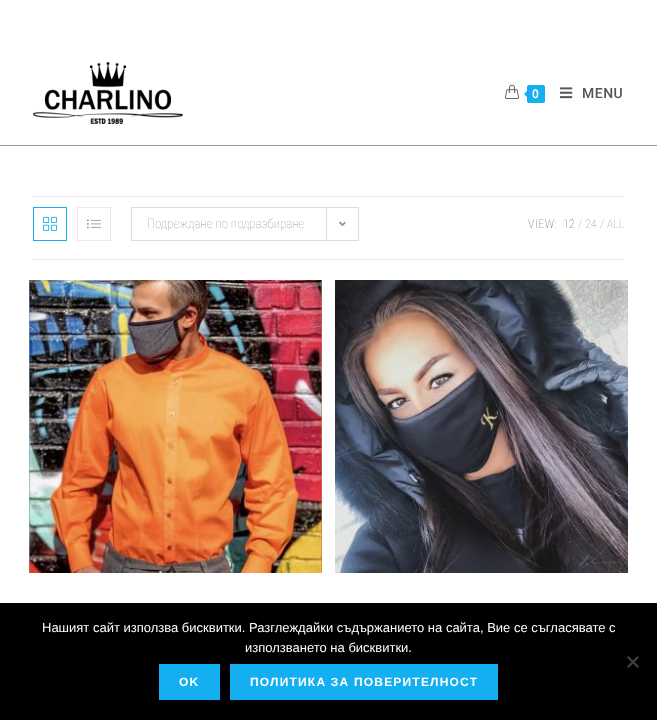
<svg xmlns="http://www.w3.org/2000/svg" width="657" height="720">
	<rect width="100%" height="100%" fill="#FFFFFF" />
	<rect x="0" y="145" width="657" height="1" fill="#9E9E9E" />
	<image x="33" y="62" width="150" height="62" href="assets/img1.png" />
	<image x="505" y="84" width="14" height="15" href="assets/img2.png" />
	<rect x="527" y="85" width="18" height="18" rx="2" fill="#13AFF0" />
	<path d="M529 89V99L524 94Z" fill="#13AFF0" />
	<text x="532" y="98" font-family="Roboto" font-size="12" font-weight="600" letter-spacing="0.5" fill="#FFFFFF">0</text>
	<image x="560" y="87" width="13" height="12" href="assets/img3.png" />
	<text x="582" y="98" font-family="Roboto" font-size="14" font-weight="500" letter-spacing="0.5" fill="#555555">MENU</text>
	<rect x="33" y="196" width="591" height="1" fill="#EAEAEA" />
	<rect x="33" y="259" width="591" height="1" fill="#EAEAEA" />
	<rect x="33.5" y="207.5" width="33" height="33" fill="none" stroke="#13AFF0" />
	<image x="43" y="216" width="14" height="15" href="assets/img4.png" />
	<rect x="77.5" y="207.5" width="33" height="33" fill="none" stroke="#EAEAEA" />
	<image x="87" y="219" width="14" height="10" href="assets/img5.png" />
	<rect x="131.5" y="207.5" width="227" height="33" fill="none" stroke="#DDDDDD" />
	<text x="147" y="228" font-family="Roboto Condensed" font-size="13" font-weight="100" fill="#999999">Подреждане по подразбиране</text>
	<rect x="326" y="208" width="1" height="32" fill="#DDDDDD" />
	<image x="339" y="221" width="7" height="5" href="assets/img6.png" />
	<path d="M346 222L350 226L354 222" fill="none" stroke="#FFFFFF" stroke-width="2" />
	<text x="528" y="228" font-family="Roboto Condensed" font-size="12" font-weight="100" letter-spacing="0.5" fill="#555555">VIEW:</text>
	<text x="563" y="228" font-family="Roboto Condensed" font-size="12" font-weight="100" fill="#555555">12</text>
	<g font-family="Roboto Condensed" font-size="12" font-weight="100" fill="#999999">
		<text x="578" y="228">/</text>
		<text x="585" y="228">24</text>
		<text x="600" y="228">/</text>
		<text x="607" y="228">ALL</text>
	</g>
	<image x="29" y="280" width="293" height="293" href="assets/img7.png" />
	<image x="335" y="280" width="293" height="293" href="assets/img8.png" />
	<rect x="0" y="603" width="657" height="117" fill="#000000" />
	<g font-family="Liberation Sans" font-size="13" fill="#FFFFFF">
		<text x="42" y="632">Нашият сайт използва бисквитки. Разглеждайки съдържанието на сайта, Вие се съгласявате с</text>
		<text x="245" y="652">използването на бисквитки.</text>
	</g>
	<path d="M637.5 656L639 657.5L628.5 668L627 666.5Z" fill="#404040" />
	<path d="M627 657.5L628.5 656L639 666.5L637.5 668Z" fill="#404040" />
	<rect x="159" y="664" width="61" height="36" fill="#13AFF0" />
	<text x="179" y="686" font-family="Liberation Sans" font-size="12" font-weight="700" letter-spacing="1.2" fill="#FFFFFF">OK</text>
	<rect x="230" y="664" width="268" height="36" fill="#13AFF0" />
	<text x="250" y="686" font-family="Liberation Sans" font-size="12" font-weight="700" letter-spacing="1.2" fill="#FFFFFF">ПОЛИТИКА ЗА ПОВЕРИТЕЛНОСТ</text>
</svg>
